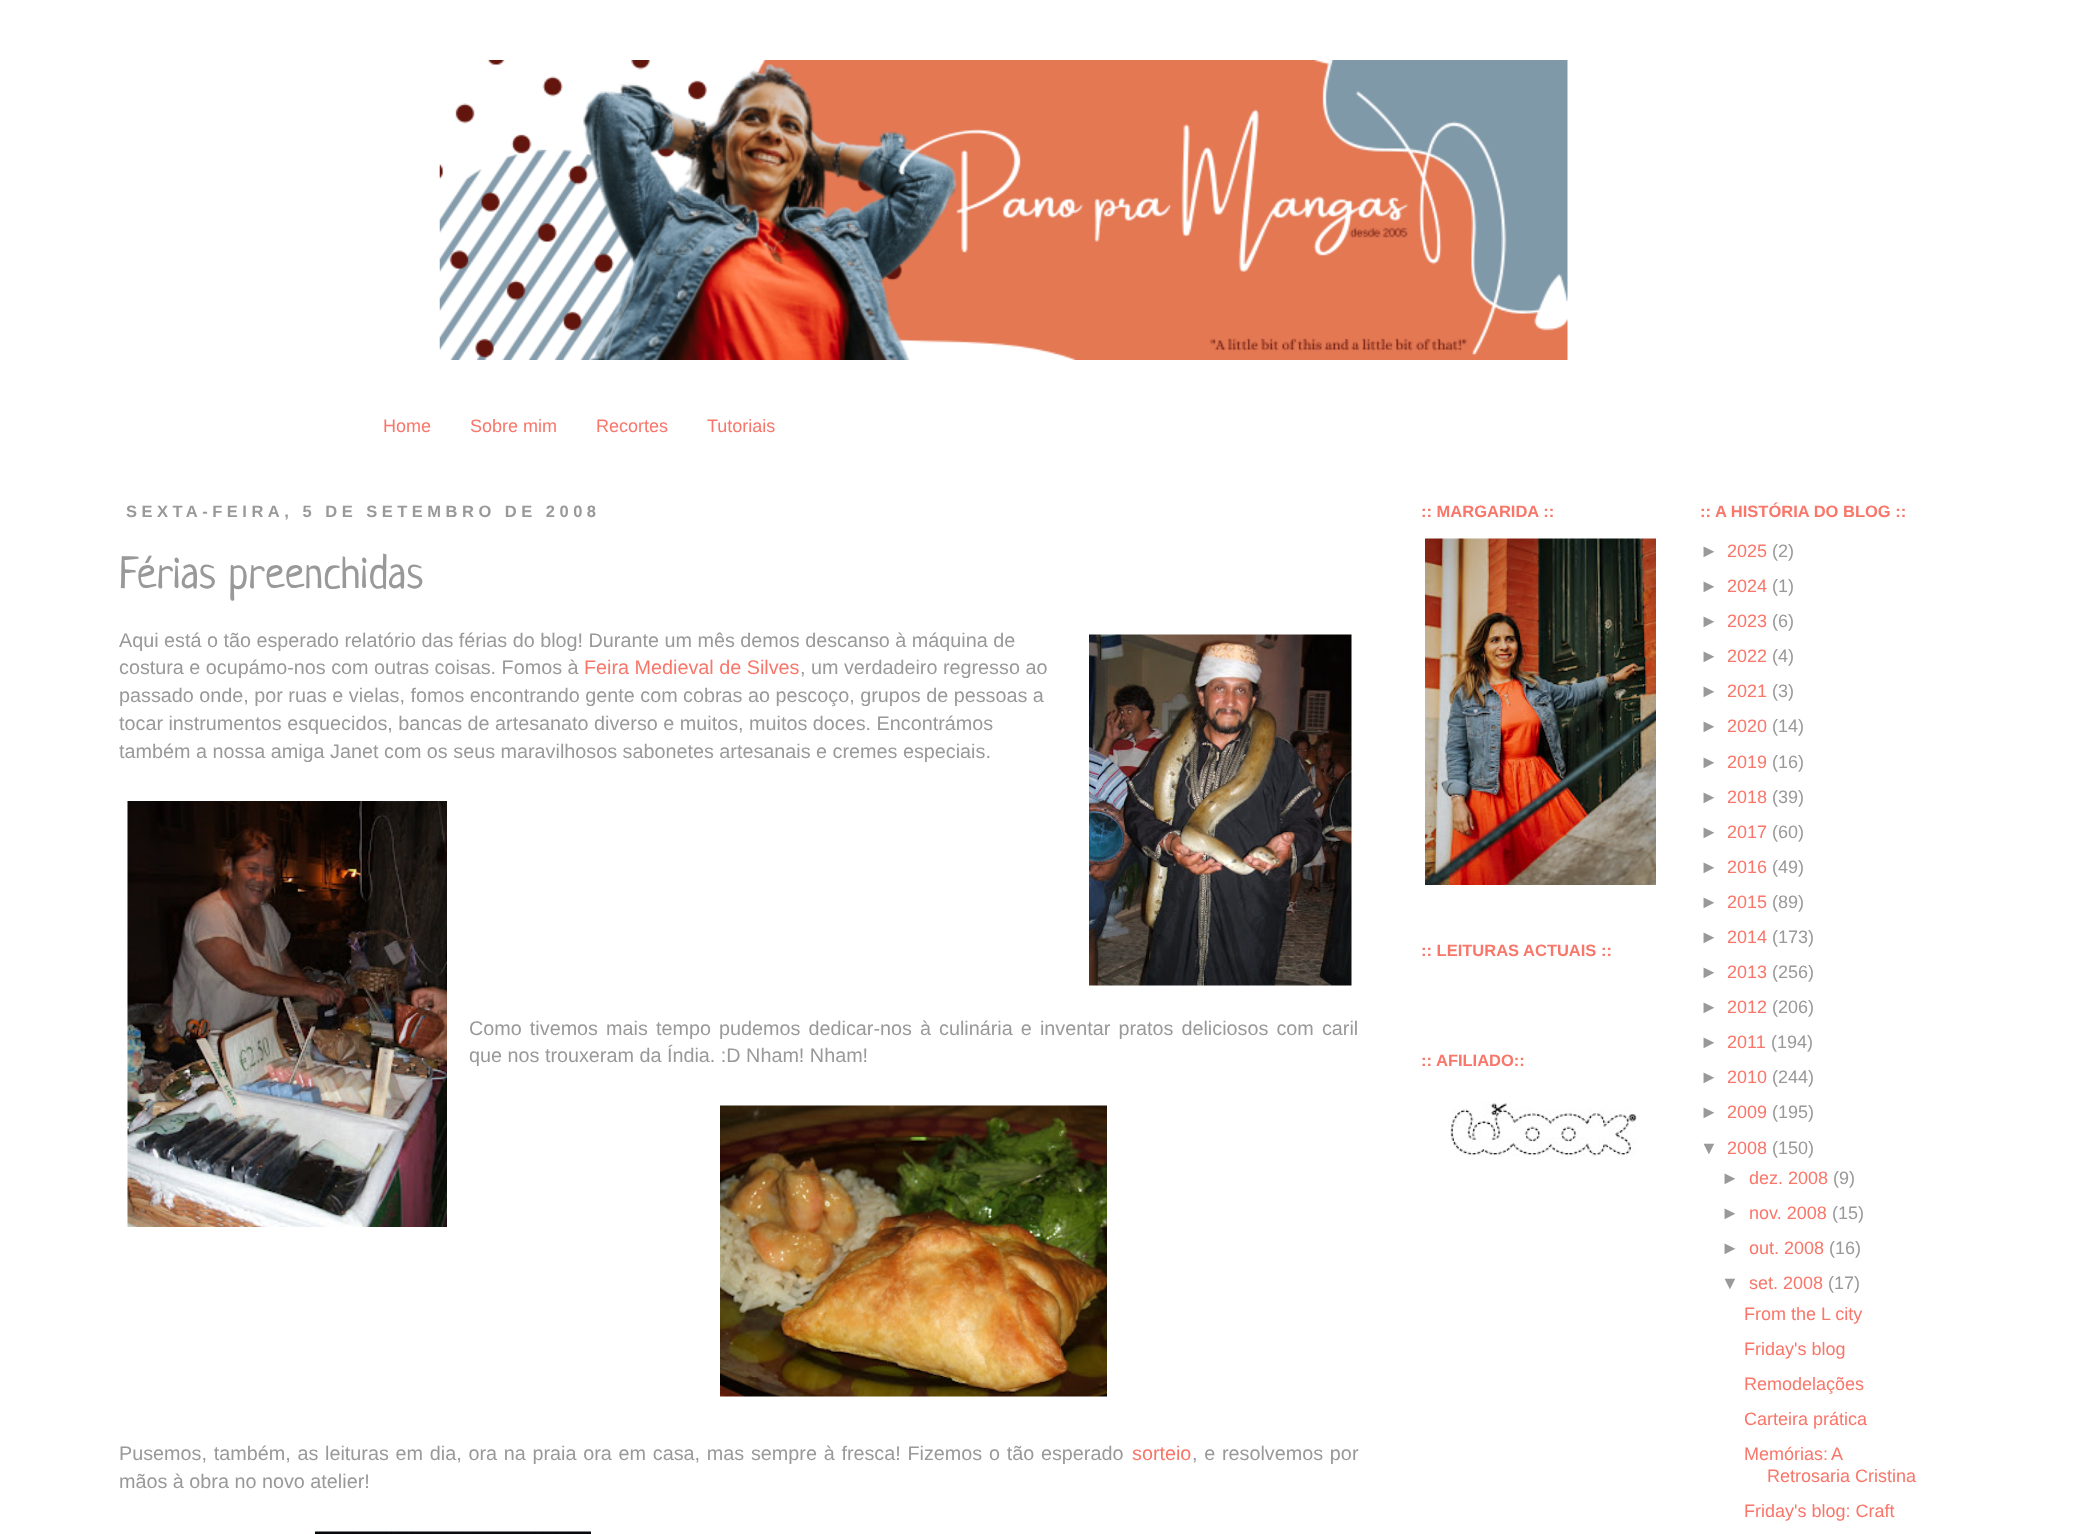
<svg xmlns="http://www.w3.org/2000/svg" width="2077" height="1534">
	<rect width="100%" height="100%" fill="#FFFFFF" />
	<image x="439" y="60" width="1129" height="300" href="assets/img1.png" />
	<g font-family="Liberation Sans" font-size="18" fill="#F8766A">
		<text x="383" y="432">Home</text>
		<text x="470" y="432">Sobre mim</text>
		<text x="596" y="432">Recortes</text>
		<text x="707" y="432">Tutoriais</text>
	</g>
	<text x="126" y="517" font-family="Liberation Sans" font-size="16.5" font-weight="700" letter-spacing="4.5" fill="#999999">SEXTA-FEIRA, 5 DE SETEMBRO DE 2008</text>
	<text x="119" y="588" font-family="Neucha" font-size="45" fill="#999999">Férias preenchidas</text>
	<text x="119" y="647" font-family="Liberation Sans" font-size="19.8" fill="#999999">Aqui está o tão esperado relatório das férias do blog! Durante um mês demos descanso à máquina de</text>
	<image x="1089" y="634" width="263" height="352" href="assets/img2.png" />
	<text x="119" y="674" font-family="Liberation Sans" font-size="19.8" fill="#999999">costura e ocupámo-nos com outras coisas. Fomos à</text>
	<text x="584" y="674" font-family="Liberation Sans" font-size="19.8" fill="#F8766A">Feira Medieval de Silves</text>
	<g font-family="Liberation Sans" font-size="19.8" fill="#999999">
		<text x="800" y="674">, um verdadeiro regresso ao</text>
		<text x="119" y="702">passado onde, por ruas e vielas, fomos encontrando gente com cobras ao pescoço, grupos de pessoas a</text>
		<text x="119" y="730">tocar instrumentos esquecidos, bancas de artesanato diverso e muitos, muitos doces. Encontrámos</text>
		<text x="119" y="758">também a nossa amiga Janet com os seus maravilhosos sabonetes artesanais e cremes especiais.</text>
	</g>
	<image x="127" y="801" width="320" height="426" href="assets/img3.png" />
	<g font-family="Liberation Sans" font-size="19.8" fill="#999999">
		<text x="469" y="1035" word-spacing="2.6">Como tivemos mais tempo pudemos dedicar-nos à culinária e inventar pratos deliciosos com caril</text>
		<text x="469" y="1062">que nos trouxeram da Índia. :D Nham! Nham!</text>
	</g>
	<image x="720" y="1105" width="387" height="292" href="assets/img4.png" />
	<text x="119" y="1460" word-spacing="1.25" font-family="Liberation Sans" font-size="19.8" fill="#999999">Pusemos, também, as leituras em dia, ora na praia ora em casa, mas sempre à fresca! Fizemos o tão esperado</text>
	<text x="1132" y="1460" font-family="Liberation Sans" font-size="19.8" fill="#F8766A">sorteio</text>
	<g font-family="Liberation Sans" font-size="19.8" fill="#999999">
		<text x="1192" y="1460" word-spacing="1.25">, e resolvemos por</text>
		<text x="119" y="1488">mãos à obra no novo atelier!</text>
	</g>
	<image x="315" y="1531" width="276" height="3" href="assets/img5.png" />
	<text x="1421" y="517" font-family="Liberation Sans" font-size="16.5" font-weight="700" fill="#F8766A">:: MARGARIDA ::</text>
	<image x="1425" y="538" width="231" height="347" href="assets/img6.png" />
	<g font-family="Liberation Sans" font-size="16.5" font-weight="700" fill="#F8766A">
		<text x="1421" y="956">:: LEITURAS ACTUAIS ::</text>
		<text x="1421" y="1066">:: AFILIADO::</text>
	</g>
	<image x="1450" y="1102" width="187" height="55" href="assets/img7.png" />
	<text x="1700" y="517" font-family="Liberation Sans" font-size="16.5" font-weight="700" fill="#F8766A">:: A HISTÓRIA DO BLOG ::</text>
	<text x="1700" y="557" font-family="Liberation Sans" font-size="18" fill="#999999">►</text>
	<text x="1727" y="557" font-family="Liberation Sans" font-size="18" fill="#F8766A">2025</text>
	<g font-family="Liberation Sans" font-size="18" fill="#999999">
		<text x="1772" y="557">(2)</text>
		<text x="1700" y="592">►</text>
	</g>
	<text x="1727" y="592" font-family="Liberation Sans" font-size="18" fill="#F8766A">2024</text>
	<g font-family="Liberation Sans" font-size="18" fill="#999999">
		<text x="1772" y="592">(1)</text>
		<text x="1700" y="627">►</text>
	</g>
	<text x="1727" y="627" font-family="Liberation Sans" font-size="18" fill="#F8766A">2023</text>
	<g font-family="Liberation Sans" font-size="18" fill="#999999">
		<text x="1772" y="627">(6)</text>
		<text x="1700" y="662">►</text>
	</g>
	<text x="1727" y="662" font-family="Liberation Sans" font-size="18" fill="#F8766A">2022</text>
	<g font-family="Liberation Sans" font-size="18" fill="#999999">
		<text x="1772" y="662">(4)</text>
		<text x="1700" y="697">►</text>
	</g>
	<text x="1727" y="697" font-family="Liberation Sans" font-size="18" fill="#F8766A">2021</text>
	<g font-family="Liberation Sans" font-size="18" fill="#999999">
		<text x="1772" y="697">(3)</text>
		<text x="1700" y="732">►</text>
	</g>
	<text x="1727" y="732" font-family="Liberation Sans" font-size="18" fill="#F8766A">2020</text>
	<g font-family="Liberation Sans" font-size="18" fill="#999999">
		<text x="1772" y="732">(14)</text>
		<text x="1700" y="768">►</text>
	</g>
	<text x="1727" y="768" font-family="Liberation Sans" font-size="18" fill="#F8766A">2019</text>
	<g font-family="Liberation Sans" font-size="18" fill="#999999">
		<text x="1772" y="768">(16)</text>
		<text x="1700" y="803">►</text>
	</g>
	<text x="1727" y="803" font-family="Liberation Sans" font-size="18" fill="#F8766A">2018</text>
	<g font-family="Liberation Sans" font-size="18" fill="#999999">
		<text x="1772" y="803">(39)</text>
		<text x="1700" y="838">►</text>
	</g>
	<text x="1727" y="838" font-family="Liberation Sans" font-size="18" fill="#F8766A">2017</text>
	<g font-family="Liberation Sans" font-size="18" fill="#999999">
		<text x="1772" y="838">(60)</text>
		<text x="1700" y="873">►</text>
	</g>
	<text x="1727" y="873" font-family="Liberation Sans" font-size="18" fill="#F8766A">2016</text>
	<g font-family="Liberation Sans" font-size="18" fill="#999999">
		<text x="1772" y="873">(49)</text>
		<text x="1700" y="908">►</text>
	</g>
	<text x="1727" y="908" font-family="Liberation Sans" font-size="18" fill="#F8766A">2015</text>
	<g font-family="Liberation Sans" font-size="18" fill="#999999">
		<text x="1772" y="908">(89)</text>
		<text x="1700" y="943">►</text>
	</g>
	<text x="1727" y="943" font-family="Liberation Sans" font-size="18" fill="#F8766A">2014</text>
	<g font-family="Liberation Sans" font-size="18" fill="#999999">
		<text x="1772" y="943">(173)</text>
		<text x="1700" y="978">►</text>
	</g>
	<text x="1727" y="978" font-family="Liberation Sans" font-size="18" fill="#F8766A">2013</text>
	<g font-family="Liberation Sans" font-size="18" fill="#999999">
		<text x="1772" y="978">(256)</text>
		<text x="1700" y="1013">►</text>
	</g>
	<text x="1727" y="1013" font-family="Liberation Sans" font-size="18" fill="#F8766A">2012</text>
	<g font-family="Liberation Sans" font-size="18" fill="#999999">
		<text x="1772" y="1013">(206)</text>
		<text x="1700" y="1048">►</text>
	</g>
	<text x="1727" y="1048" font-family="Liberation Sans" font-size="18" fill="#F8766A">2011</text>
	<g font-family="Liberation Sans" font-size="18" fill="#999999">
		<text x="1771" y="1048">(194)</text>
		<text x="1700" y="1083">►</text>
	</g>
	<text x="1727" y="1083" font-family="Liberation Sans" font-size="18" fill="#F8766A">2010</text>
	<g font-family="Liberation Sans" font-size="18" fill="#999999">
		<text x="1772" y="1083">(244)</text>
		<text x="1700" y="1118">►</text>
	</g>
	<text x="1727" y="1118" font-family="Liberation Sans" font-size="18" fill="#F8766A">2009</text>
	<g font-family="Liberation Sans" font-size="18" fill="#999999">
		<text x="1772" y="1118">(195)</text>
		<text x="1700" y="1154">▼</text>
	</g>
	<text x="1727" y="1154" font-family="Liberation Sans" font-size="18" fill="#F8766A">2008</text>
	<g font-family="Liberation Sans" font-size="18" fill="#999999">
		<text x="1772" y="1154">(150)</text>
		<text x="1721" y="1184">►</text>
	</g>
	<text x="1749" y="1184" font-family="Liberation Sans" font-size="18" fill="#F8766A">dez. 2008</text>
	<g font-family="Liberation Sans" font-size="18" fill="#999999">
		<text x="1833" y="1184">(9)</text>
		<text x="1721" y="1219">►</text>
	</g>
	<text x="1749" y="1219" font-family="Liberation Sans" font-size="18" fill="#F8766A">nov. 2008</text>
	<g font-family="Liberation Sans" font-size="18" fill="#999999">
		<text x="1832" y="1219">(15)</text>
		<text x="1721" y="1254">►</text>
	</g>
	<text x="1749" y="1254" font-family="Liberation Sans" font-size="18" fill="#F8766A">out. 2008</text>
	<g font-family="Liberation Sans" font-size="18" fill="#999999">
		<text x="1829" y="1254">(16)</text>
		<text x="1721" y="1289">▼</text>
	</g>
	<text x="1749" y="1289" font-family="Liberation Sans" font-size="18" fill="#F8766A">set. 2008</text>
	<text x="1828" y="1289" font-family="Liberation Sans" font-size="18" fill="#999999">(17)</text>
	<g font-family="Liberation Sans" font-size="18" fill="#F8766A">
		<text x="1744" y="1320">From the L city</text>
		<text x="1744" y="1355">Friday's blog</text>
		<text x="1744" y="1390">Remodelações</text>
		<text x="1744" y="1425">Carteira prática</text>
		<text x="1744" y="1460" word-spacing="-1">Memórias: A</text>
		<text x="1767" y="1482">Retrosaria Cristina</text>
		<text x="1744" y="1517">Friday's blog: Craft</text>
	</g>
</svg>
